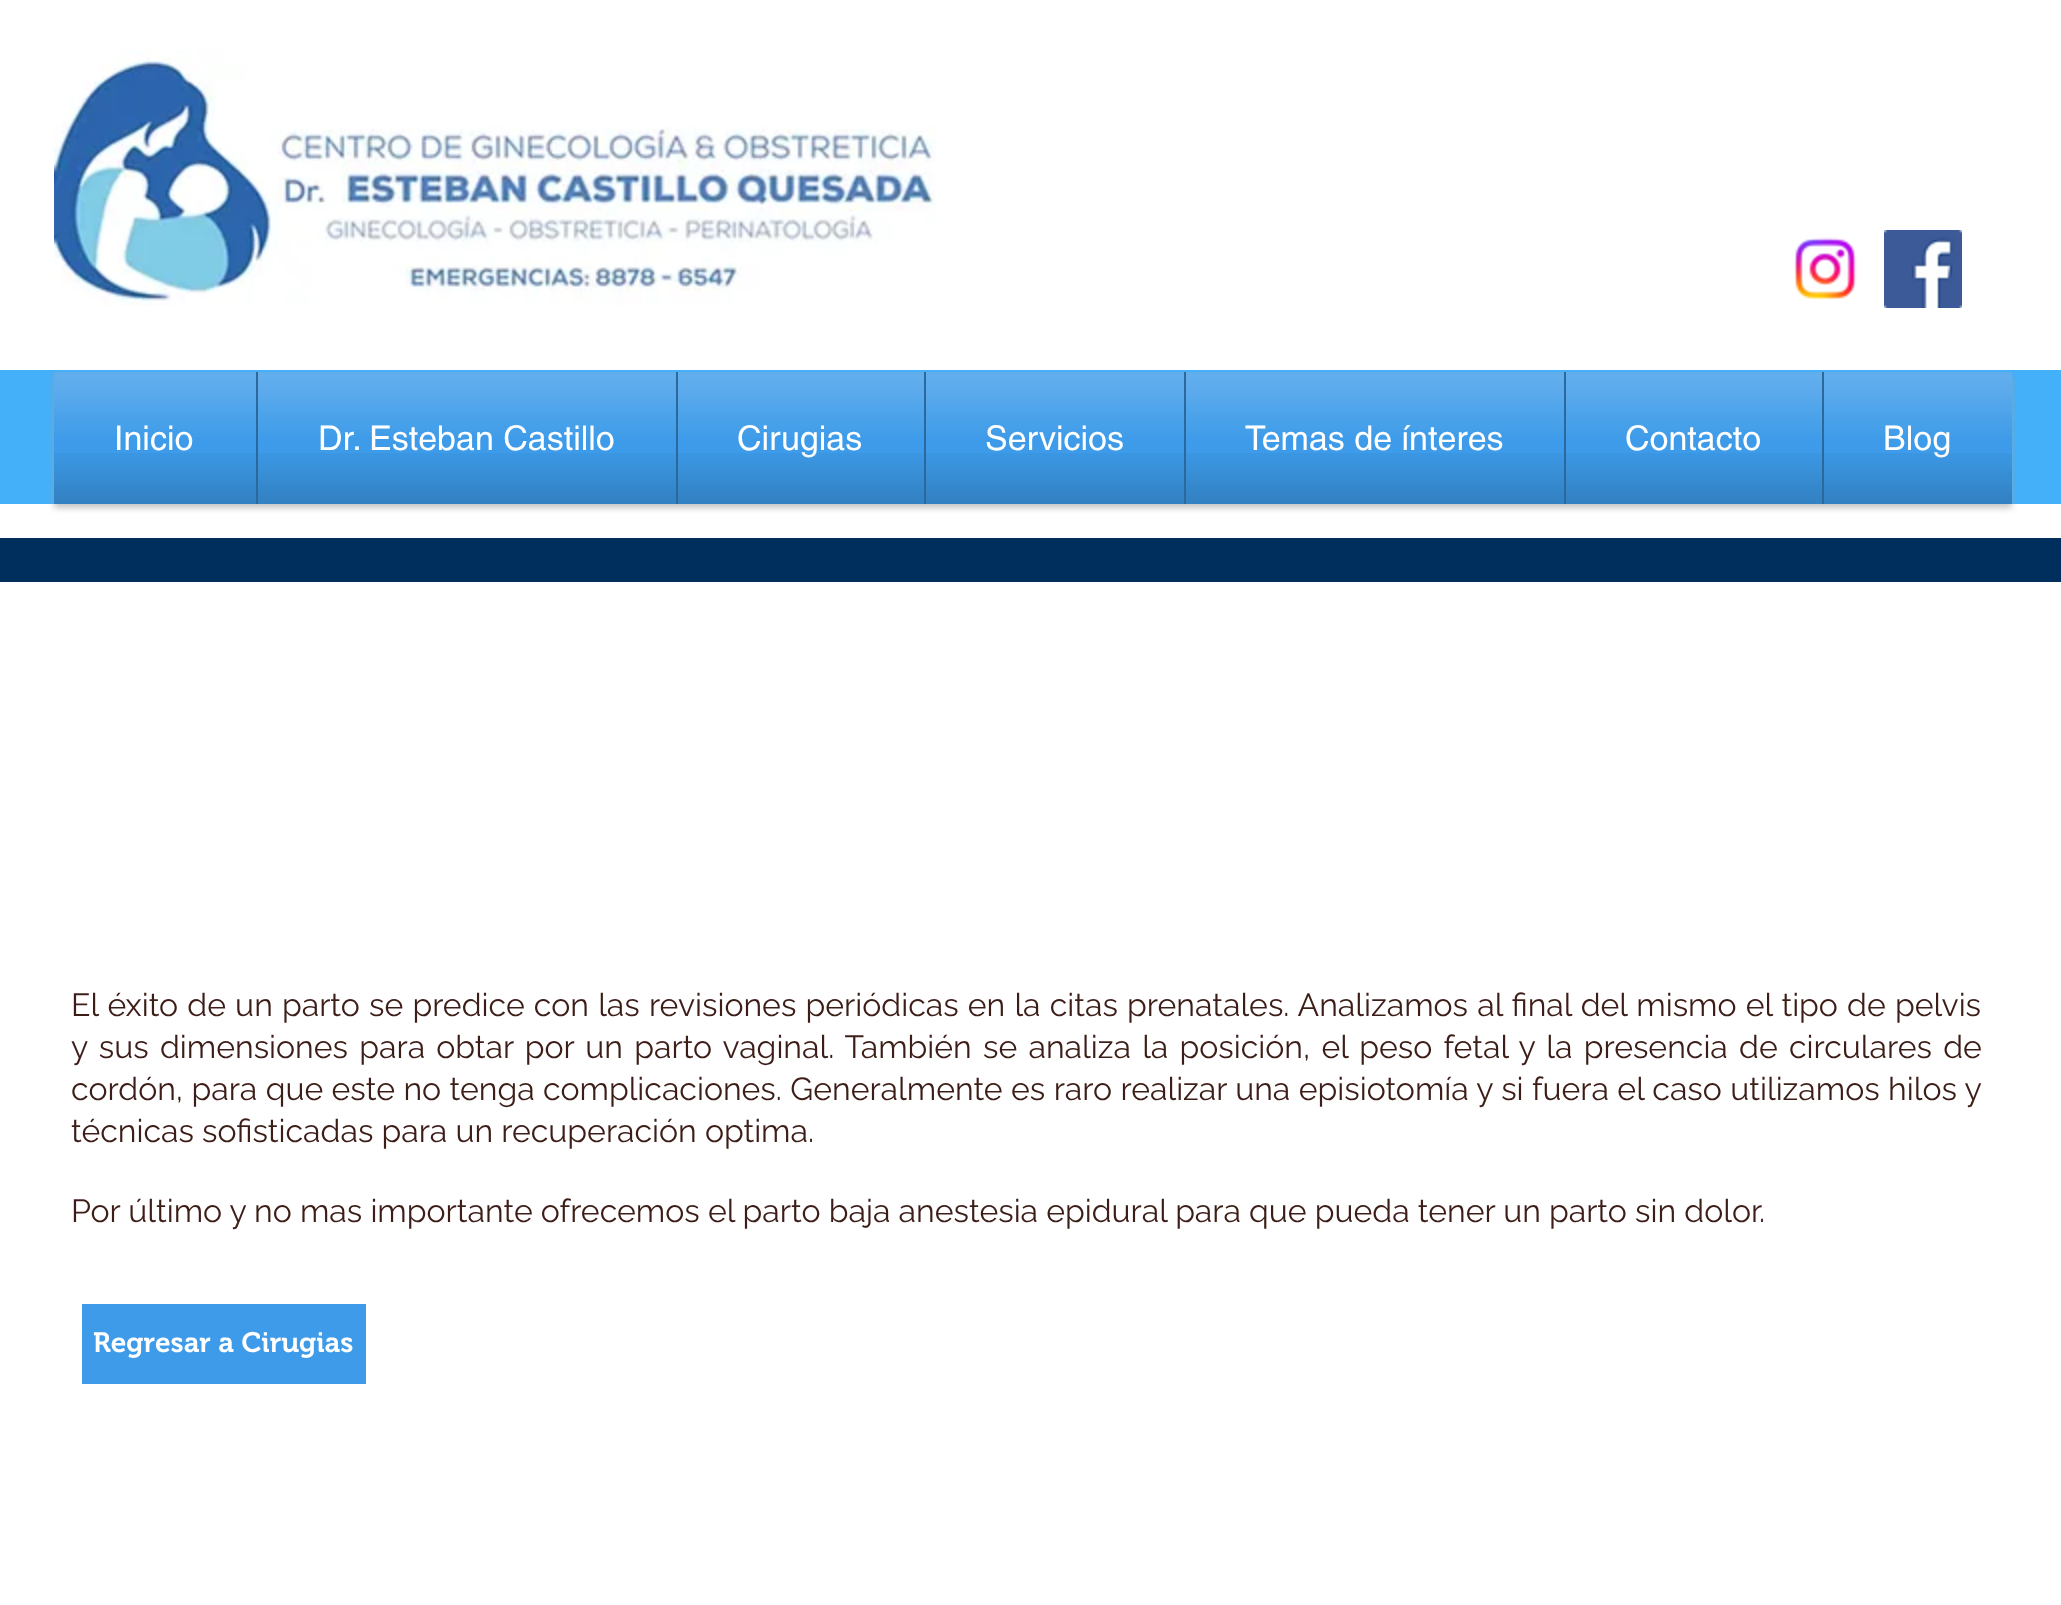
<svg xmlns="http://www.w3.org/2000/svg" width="2061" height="1605">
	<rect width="100%" height="100%" fill="#FFFFFF" />
	<image x="54" y="50" width="883" height="256" href="assets/img1.png" />
	<image x="1794" y="237" width="63" height="63" href="assets/img2.png" />
	<image x="1884" y="230" width="78" height="78" href="assets/img3.png" />
	<rect x="0" y="370" width="2061" height="134" fill="#43B0F9" />
	<rect x="54" y="376" width="1958" height="132" fill="#A29E9E" fill-opacity="0.6" filter="blur(3px)" />
	<rect x="54" y="372" width="202" height="132" fill="#3D9BE9" />
	<text x="114" y="450" font-family="helvetica" font-size="34" fill="#FFFFFF">Inicio</text>
	<image x="54" y="372" width="202" height="65" href="assets/img4.png" />
	<image x="54" y="453" width="202" height="51" href="assets/img5.png" />
	<rect x="258" y="372" width="418" height="132" fill="#3D9BE9" />
	<rect x="256" y="372" width="2" height="132" fill="#2B689C" />
	<text x="318" y="450" font-family="helvetica" font-size="34" fill="#FFFFFF">Dr. Esteban Castillo</text>
	<image x="258" y="372" width="418" height="65" href="assets/img6.png" />
	<image x="258" y="453" width="418" height="51" href="assets/img7.png" />
	<rect x="678" y="372" width="246" height="132" fill="#3D9BE9" />
	<rect x="676" y="372" width="2" height="132" fill="#2B689C" />
	<text x="737" y="450" font-family="helvetica" font-size="34" fill="#FFFFFF">Cirugias</text>
	<image x="678" y="372" width="246" height="65" href="assets/img8.png" />
	<image x="678" y="453" width="246" height="51" href="assets/img9.png" />
	<rect x="926" y="372" width="258" height="132" fill="#3D9BE9" />
	<rect x="924" y="372" width="2" height="132" fill="#2B689C" />
	<text x="985" y="450" font-family="helvetica" font-size="34" fill="#FFFFFF">Servicios</text>
	<image x="926" y="372" width="258" height="65" href="assets/img10.png" />
	<image x="926" y="453" width="258" height="51" href="assets/img11.png" />
	<rect x="1186" y="372" width="378" height="132" fill="#3D9BE9" />
	<rect x="1184" y="372" width="2" height="132" fill="#2B689C" />
	<text x="1245" y="450" font-family="helvetica" font-size="34" fill="#FFFFFF">Temas de ínteres</text>
	<image x="1186" y="372" width="378" height="65" href="assets/img12.png" />
	<image x="1186" y="453" width="378" height="51" href="assets/img13.png" />
	<rect x="1566" y="372" width="256" height="132" fill="#3D9BE9" />
	<rect x="1564" y="372" width="2" height="132" fill="#2B689C" />
	<text x="1625" y="450" font-family="helvetica" font-size="34" fill="#FFFFFF">Contacto</text>
	<image x="1566" y="372" width="256" height="65" href="assets/img14.png" />
	<image x="1566" y="453" width="256" height="51" href="assets/img15.png" />
	<rect x="1824" y="372" width="188" height="132" fill="#3D9BE9" />
	<rect x="1822" y="372" width="2" height="132" fill="#2B689C" />
	<text x="1883" y="450" font-family="helvetica" font-size="34" fill="#FFFFFF">Blog</text>
	<image x="1824" y="372" width="188" height="65" href="assets/img16.png" />
	<image x="1824" y="453" width="188" height="51" href="assets/img17.png" />
	<rect x="0" y="538" width="2061" height="44" fill="#002E5D" />
	<g font-family="Raleway" font-size="32" fill="#3C1D17">
		<text x="71" y="1016" word-spacing="1">El éxito de un parto se predice con las revisiones periódicas en la citas prenatales. Analizamos al final del mismo el tipo de pelvis</text>
		<text x="71" y="1058" word-spacing="3.1">y sus dimensiones para obtar por un parto vaginal. También se analiza la posición, el peso fetal y la presencia de circulares de</text>
		<text x="71" y="1100" word-spacing="0.25">cordón, para que este no tenga complicaciones. Generalmente es raro realizar una episiotomía y si fuera el caso utilizamos hilos y</text>
		<text x="71" y="1142">técnicas sofisticadas para un recuperación optima.</text>
		<text x="71" y="1222">Por último y no mas importante ofrecemos el parto baja anestesia epidural para que pueda tener un parto sin dolor.</text>
	</g>
	<rect x="82" y="1304" width="284" height="80" fill="#3D9BE9" />
	<text x="93" y="1352" font-family="'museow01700'" font-size="28" font-weight="600" fill="#FFFFFF">Regresar a Cirugias</text>
</svg>
